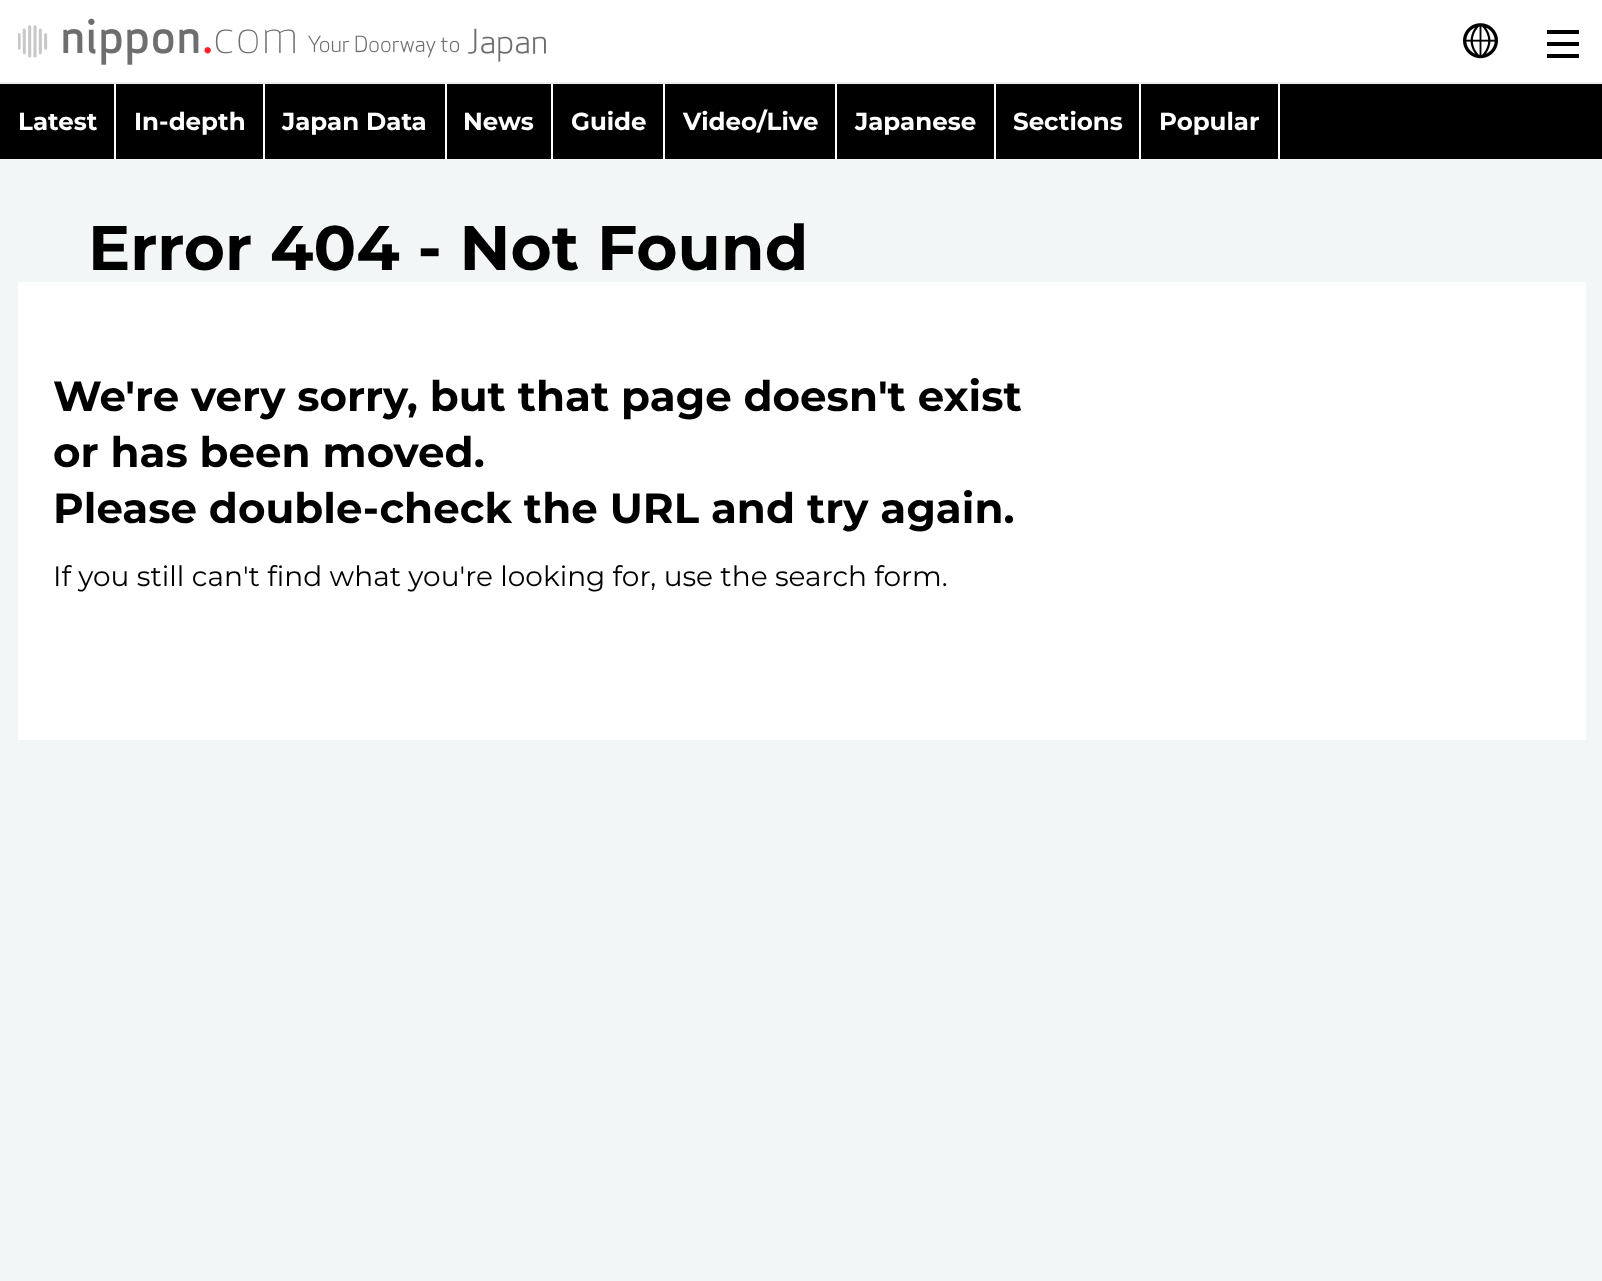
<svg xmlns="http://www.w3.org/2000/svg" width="1602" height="1281">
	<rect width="100%" height="100%" fill="#F3F6F7" />
	<rect x="0" y="0" width="1602" height="82" fill="#FFFFFF" />
	<rect x="0" y="82" width="1602" height="2" fill="#EEEEEE" />
	<image x="18" y="18" width="528" height="47" href="assets/img1.png" />
	<image x="1463" y="23" width="35" height="36" href="assets/img2.png" />
	<rect x="1547" y="42" width="32" height="4" fill="#000000" />
	<rect x="1547" y="30" width="32" height="4" fill="#000000" />
	<rect x="1547" y="54" width="32" height="4" fill="#000000" />
	<rect x="0" y="84" width="1602" height="75" fill="#000000" />
	<rect x="114" y="84" width="2" height="75" fill="#FFFFFF" />
	<text x="18" y="130" font-family="Montserrat" font-size="24.5" font-weight="700" fill="#FFFFFF">Latest</text>
	<rect x="263" y="84" width="2" height="75" fill="#FFFFFF" />
	<text x="134" y="130" font-family="Montserrat" font-size="24.5" font-weight="700" fill="#FFFFFF">In-depth</text>
	<rect x="445" y="84" width="2" height="75" fill="#FFFFFF" />
	<text x="282" y="130" font-family="Montserrat" font-size="24.5" font-weight="700" fill="#FFFFFF">Japan Data</text>
	<rect x="551" y="84" width="2" height="75" fill="#FFFFFF" />
	<text x="463" y="130" font-family="Montserrat" font-size="24.5" font-weight="700" fill="#FFFFFF">News</text>
	<rect x="663" y="84" width="2" height="75" fill="#FFFFFF" />
	<text x="571" y="130" font-family="Montserrat" font-size="24.5" font-weight="700" fill="#FFFFFF">Guide</text>
	<rect x="835" y="84" width="2" height="75" fill="#FFFFFF" />
	<text x="683" y="130" font-family="Montserrat" font-size="24.5" font-weight="700" fill="#FFFFFF">Video/Live</text>
	<rect x="994" y="84" width="2" height="75" fill="#FFFFFF" />
	<text x="855" y="130" font-family="Montserrat" font-size="24.5" font-weight="700" fill="#FFFFFF">Japanese</text>
	<rect x="1139" y="84" width="2" height="75" fill="#FFFFFF" />
	<text x="1013" y="130" font-family="Montserrat" font-size="24.5" font-weight="700" fill="#FFFFFF">Sections</text>
	<rect x="1278" y="84" width="2" height="75" fill="#FFFFFF" />
	<text x="1159" y="130" font-family="Montserrat" font-size="24.5" font-weight="700" fill="#FFFFFF">Popular</text>
	<text x="88" y="270" font-family="Montserrat" font-size="63" font-weight="700" fill="#000000">Error 404 - Not Found</text>
	<rect x="18" y="282" width="1568" height="458" fill="#FFFFFF" />
	<g font-family="Montserrat" font-size="42" font-weight="700" fill="#000000">
		<text x="53" y="411">We're very sorry, but that page doesn't exist</text>
		<text x="53" y="467">or has been moved.</text>
		<text x="53" y="523">Please double-check the URL and try again.</text>
	</g>
	<text x="53" y="586" font-family="Montserrat" font-size="28" fill="#000000">If you still can't find what you're looking for, use the search form.</text>
</svg>
